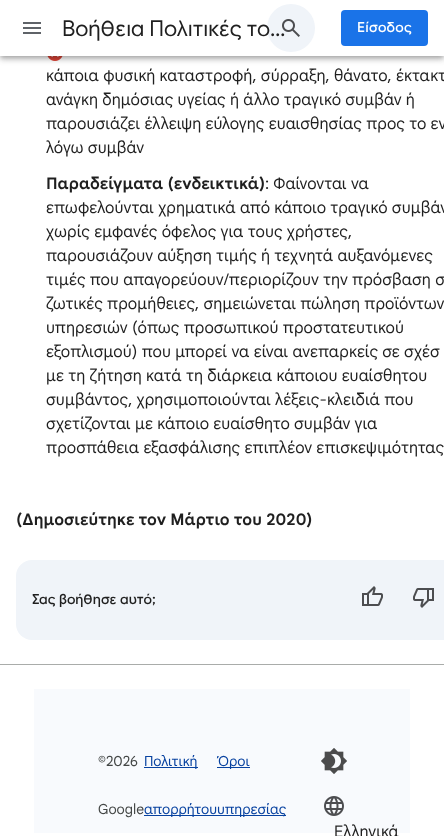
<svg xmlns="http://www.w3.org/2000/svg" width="444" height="836">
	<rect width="100%" height="100%" fill="#FFFFFF" />
	<image x="47" y="56" width="16" height="5" href="assets/img3.png" />
	<rect x="1" y="3" width="442" height="54" fill="#000000" fill-opacity="0.2" filter="blur(2px)" />
	<rect x="0" y="1" width="444" height="56" fill="#000000" fill-opacity="0.12" filter="blur(5px)" />
	<rect x="0" y="4" width="444" height="56" fill="#000000" fill-opacity="0.14" filter="blur(2.5px)" />
	<rect x="0" y="0" width="444" height="56" fill="#FFFFFF" />
	<image x="23" y="22" width="18" height="12" href="assets/img1.png" />
	<circle cx="291" cy="28" r="24" fill="#F0F4F9" />
	<image x="282" y="19" width="18" height="18" href="assets/img2.png" />
	<text x="62" y="36" font-family="Google Sans" font-size="22" fill="#1F1F1F">Βοήθεια Πολιτικές το…</text>
	<rect x="341" y="10" width="87" height="36" rx="4" fill="#1A73E8" />
	<text x="357" y="32" font-family="Google Sans" font-size="14" font-weight="500" letter-spacing="0.25" fill="#FFFFFF">Είσοδος</text>
	<g font-family="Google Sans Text" font-size="16" letter-spacing="0.08" fill="#1F1F1F">
		<text x="46" y="81">κάποια φυσική καταστροφή, σύρραξη, θάνατο, έκτακτ</text>
		<text x="46" y="105">ανάγκη δημόσιας υγείας ή άλλο τραγικό συμβάν ή</text>
		<text x="46" y="129">παρουσιάζει έλλειψη εύλογης ευαισθησίας προς το εν</text>
		<text x="46" y="153">λόγω συμβάν</text>
	</g>
	<text x="46" y="189" font-family="Google Sans Text" font-size="16" font-weight="700" letter-spacing="0.08" fill="#1F1F1F">Παραδείγματα (ενδεικτικά)</text>
	<g font-family="Google Sans Text" font-size="16" letter-spacing="0.08" fill="#1F1F1F">
		<text x="265" y="189">: Φαίνονται να</text>
		<text x="46" y="213">επωφελούνται χρηματικά από κάποιο τραγικό συμβάν</text>
		<text x="46" y="237">χωρίς εμφανές όφελος για τους χρήστες,</text>
		<text x="46" y="261">παρουσιάζουν αύξηση τιμής ή τεχνητά αυξανόμενες</text>
		<text x="46" y="285">τιμές που απαγορεύουν/περιορίζουν την πρόσβαση σ</text>
		<text x="46" y="309">ζωτικές προμήθειες, σημειώνεται πώληση προϊόντων</text>
		<text x="46" y="333">υπηρεσιών (όπως προσωπικού προστατευτικού</text>
		<text x="46" y="357">εξοπλισμού) που μπορεί να είναι ανεπαρκείς σε σχέσ</text>
		<text x="46" y="381">με τη ζήτηση κατά τη διάρκεια κάποιου ευαίσθητου</text>
		<text x="46" y="405">συμβάντος, χρησιμοποιούνται λέξεις-κλειδιά που</text>
		<text x="46" y="429">σχετίζονται με κάποιο ευαίσθητο συμβάν για</text>
		<text x="46" y="453">προσπάθεια εξασφάλισης επιπλέον επισκεψιμότητας</text>
	</g>
	<text x="16" y="525" font-family="Google Sans Text" font-size="16" font-weight="700" letter-spacing="0.08" fill="#1F1F1F">(Δημοσιεύτηκε τον Μάρτιο του 2020)</text>
	<rect x="16" y="560" width="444" height="80" rx="16" fill="#F0F4F9" />
	<text x="32" y="604" font-family="Google Sans" font-size="14" font-weight="500" fill="#1F1F1F">Σας βοήθησε αυτό;</text>
	<image x="362" y="586" width="21" height="20" href="assets/img4.png" />
	<image x="413" y="588" width="21" height="20" href="assets/img5.png" />
	<rect x="0" y="664" width="444" height="1" fill="#A9ACAA" />
	<rect x="34" y="689" width="376" height="144" fill="#F8FAFD" />
	<g font-family="Google Sans Text" font-size="14" fill="#444746">
		<text x="98" y="766">©2026</text>
		<text x="98" y="814">Google</text>
	</g>
	<rect x="144" y="767" width="54" height="1" fill="#0842A0" />
	<text x="144" y="766" font-family="Google Sans Text" font-size="14" fill="#0842A0">Πολιτική</text>
	<rect x="144" y="815" width="142" height="1" fill="#0842A0" />
	<text x="144" y="814" font-family="Google Sans Text" font-size="14" fill="#0842A0">απορρήτουυπηρεσίας</text>
	<rect x="217" y="767" width="33" height="1" fill="#0842A0" />
	<text x="217" y="766" font-family="Google Sans Text" font-size="14" fill="#0842A0">Όροι</text>
	<image x="321" y="748" width="26" height="26" href="assets/img6.png" />
	<image x="324" y="796" width="20" height="20" href="assets/img7.png" />
	<text x="334" y="837" font-family="Google Sans Text" font-size="16" fill="#1F1F1F">Ελληνικά</text>
</svg>
